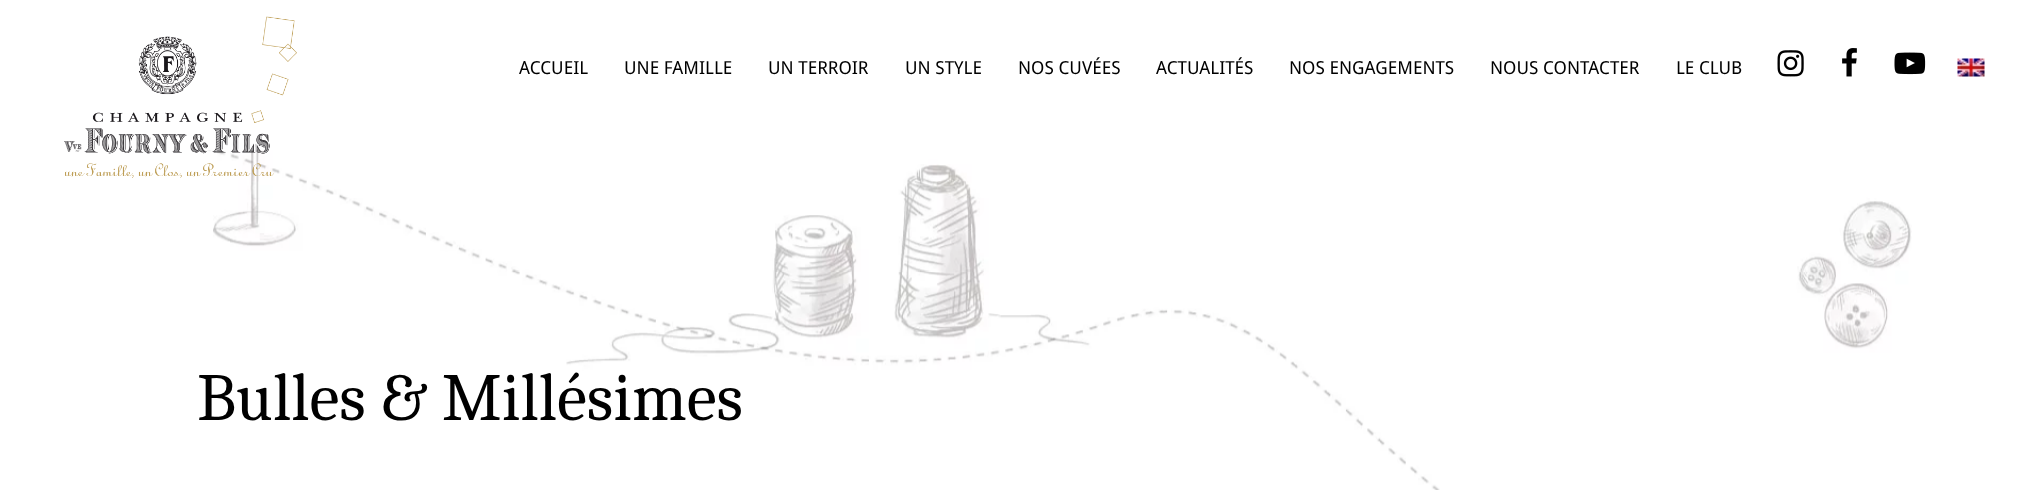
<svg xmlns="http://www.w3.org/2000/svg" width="2044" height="490">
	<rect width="100%" height="100%" fill="#FFFFFF" />
	<image x="207" y="150" width="1705" height="340" href="assets/img6.png" />
	<image x="64" y="16" width="233" height="162" href="assets/img1.png" />
	<g font-family="Droid Sans" font-size="18" fill="#000000">
		<text x="519" y="74">ACCUEIL</text>
		<text x="624" y="74">UNE FAMILLE</text>
		<text x="768" y="74">UN TERROIR</text>
		<text x="905" y="74">UN STYLE</text>
		<text x="1018" y="74">NOS CUVÉES</text>
		<text x="1156" y="74">ACTUALITÉS</text>
		<text x="1289" y="74">NOS ENGAGEMENTS</text>
		<text x="1490" y="74">NOUS CONTACTER</text>
		<text x="1676" y="74">LE CLUB</text>
	</g>
	<image x="1777" y="50" width="27" height="27" href="assets/img2.png" />
	<image x="1842" y="48" width="15" height="29" href="assets/img3.png" />
	<image x="1894" y="52" width="32" height="23" href="assets/img4.png" />
	<image x="1957" y="58" width="28" height="19" href="assets/img5.png" />
	<text x="197" y="420" font-family="Caladea" font-size="67.5" fill="#000000">Bulles &amp; Millésimes</text>
</svg>
